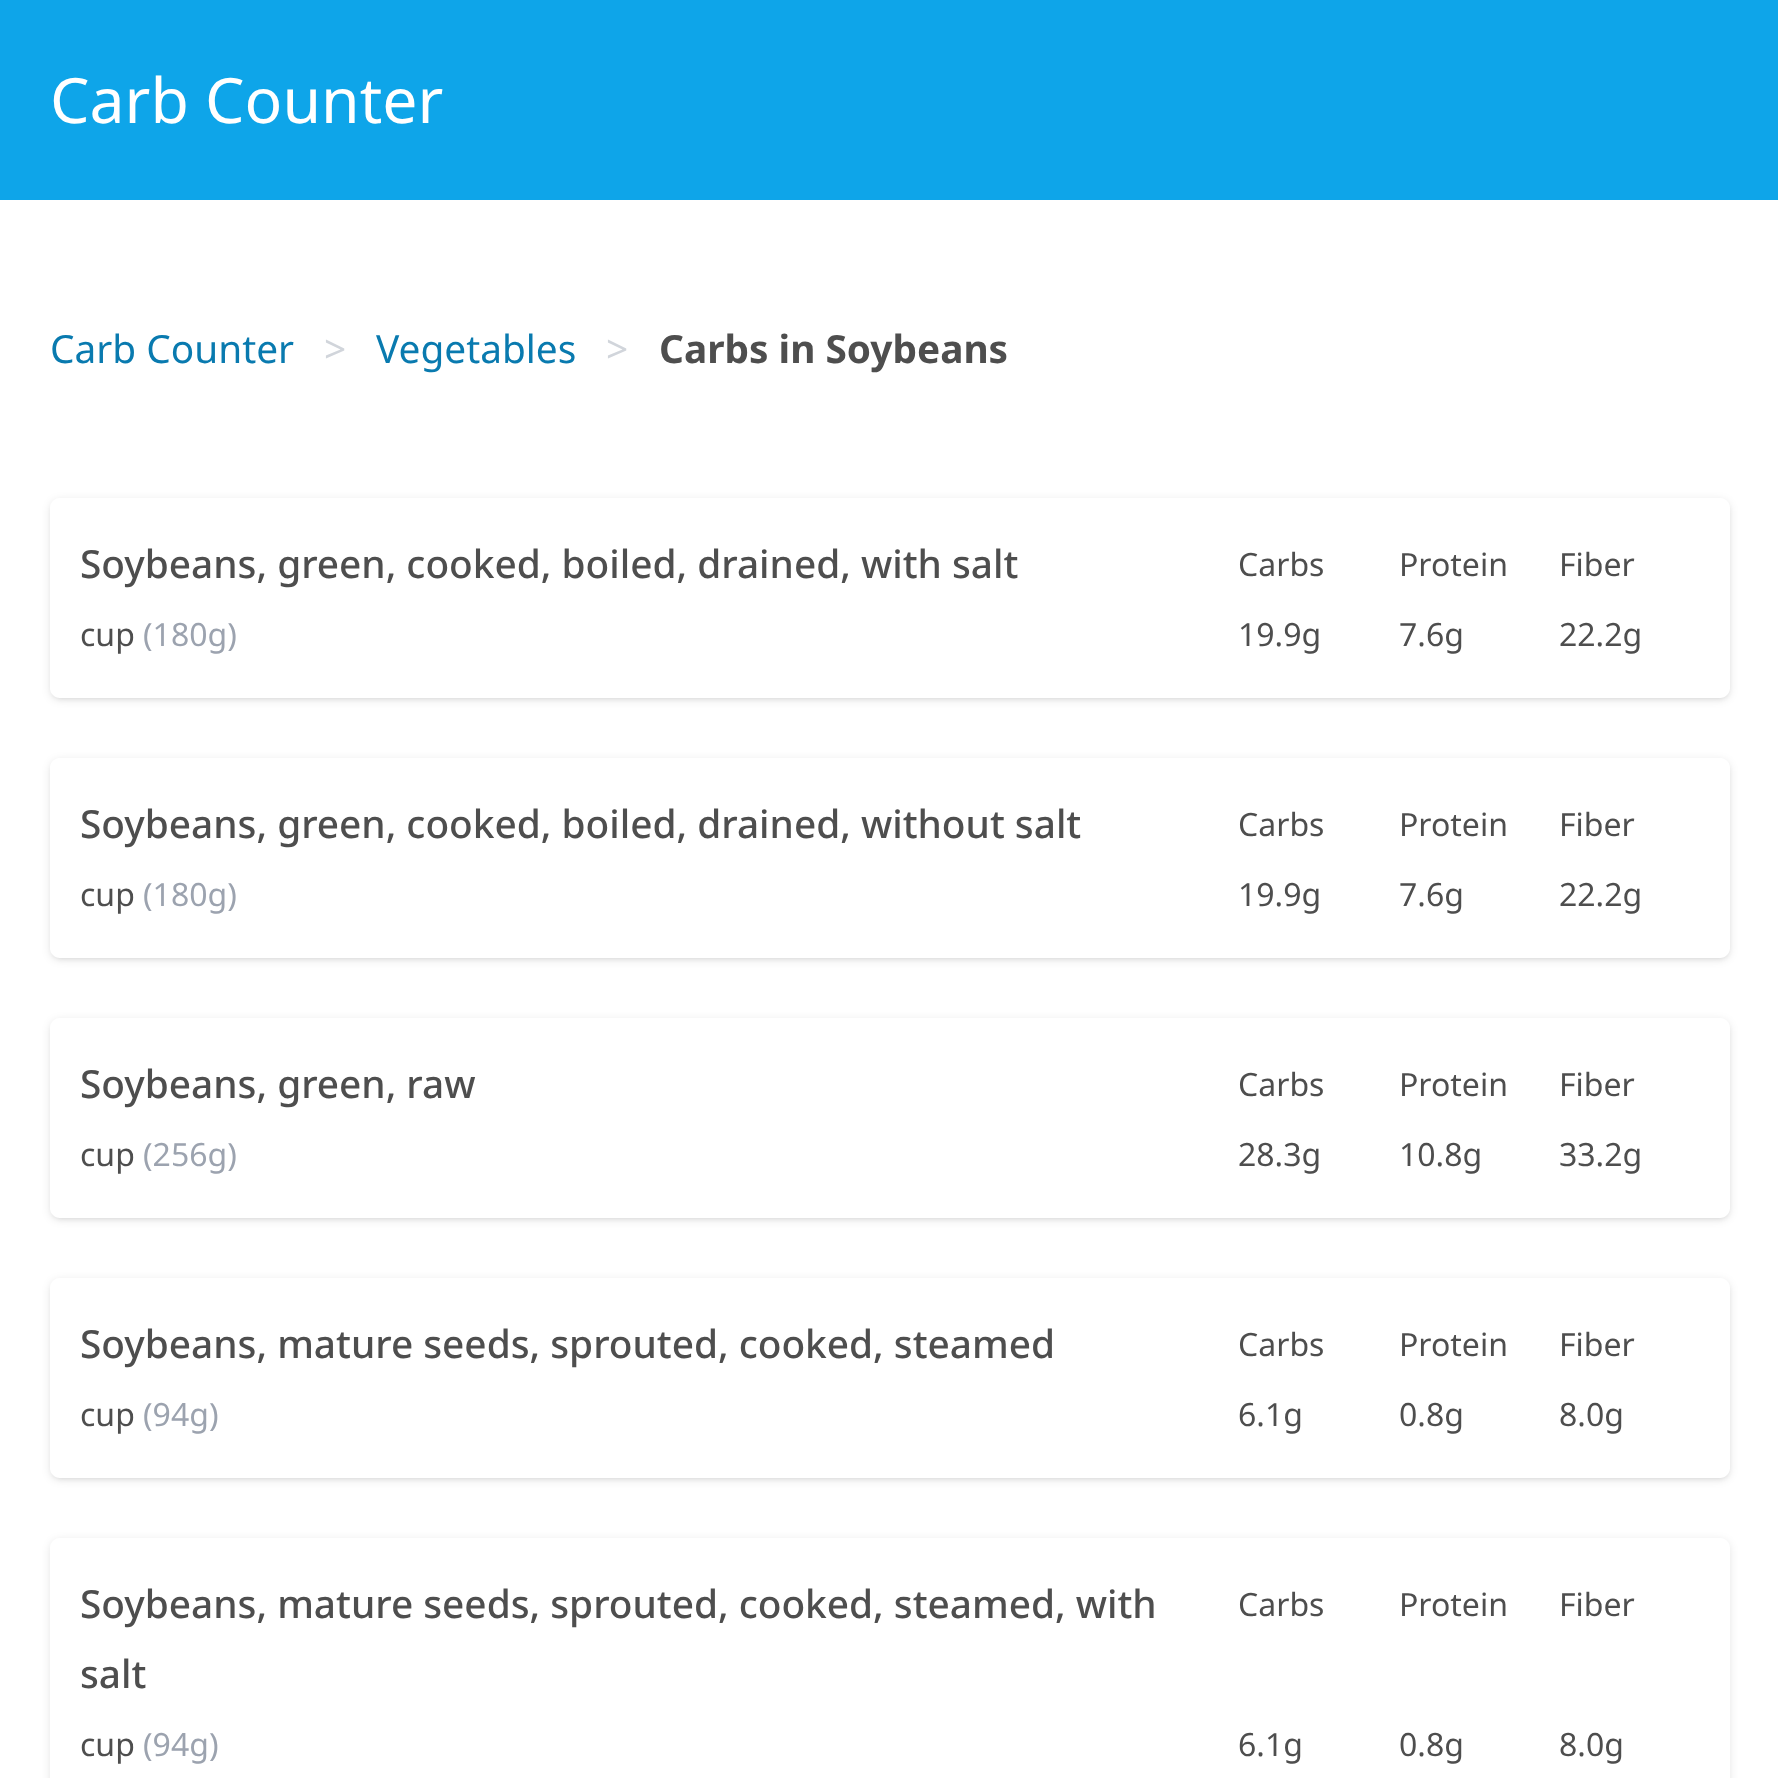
<svg xmlns="http://www.w3.org/2000/svg" width="1778" height="1778">
	<defs>
		<clipPath id="clip1"><path d="M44 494H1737V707H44ZM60 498H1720C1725.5 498 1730 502.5 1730 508V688C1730 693.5 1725.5 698 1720 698H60C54.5 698 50 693.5 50 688V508C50 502.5 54.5 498 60 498Z" clip-rule="evenodd" /></clipPath>
		<clipPath id="clip2"><path d="M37 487H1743V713H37ZM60 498H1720C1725.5 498 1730 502.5 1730 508V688C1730 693.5 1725.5 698 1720 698H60C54.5 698 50 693.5 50 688V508C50 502.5 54.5 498 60 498Z" clip-rule="evenodd" /></clipPath>
		<clipPath id="clip3"><path d="M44 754H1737V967H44ZM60 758H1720C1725.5 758 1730 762.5 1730 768V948C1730 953.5 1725.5 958 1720 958H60C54.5 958 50 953.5 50 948V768C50 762.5 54.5 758 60 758Z" clip-rule="evenodd" /></clipPath>
		<clipPath id="clip4"><path d="M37 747H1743V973H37ZM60 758H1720C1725.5 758 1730 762.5 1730 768V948C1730 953.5 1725.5 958 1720 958H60C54.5 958 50 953.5 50 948V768C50 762.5 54.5 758 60 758Z" clip-rule="evenodd" /></clipPath>
		<clipPath id="clip5"><path d="M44 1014H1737V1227H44ZM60 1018H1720C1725.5 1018 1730 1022.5 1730 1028V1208C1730 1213.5 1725.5 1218 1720 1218H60C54.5 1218 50 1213.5 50 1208V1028C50 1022.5 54.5 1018 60 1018Z" clip-rule="evenodd" /></clipPath>
		<clipPath id="clip6"><path d="M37 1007H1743V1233H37ZM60 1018H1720C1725.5 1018 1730 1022.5 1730 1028V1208C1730 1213.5 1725.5 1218 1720 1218H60C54.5 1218 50 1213.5 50 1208V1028C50 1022.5 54.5 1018 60 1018Z" clip-rule="evenodd" /></clipPath>
		<clipPath id="clip7"><path d="M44 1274H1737V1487H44ZM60 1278H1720C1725.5 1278 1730 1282.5 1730 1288V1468C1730 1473.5 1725.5 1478 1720 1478H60C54.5 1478 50 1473.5 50 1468V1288C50 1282.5 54.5 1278 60 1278Z" clip-rule="evenodd" /></clipPath>
		<clipPath id="clip8"><path d="M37 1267H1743V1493H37ZM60 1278H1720C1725.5 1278 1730 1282.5 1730 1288V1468C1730 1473.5 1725.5 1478 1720 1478H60C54.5 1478 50 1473.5 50 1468V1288C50 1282.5 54.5 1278 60 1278Z" clip-rule="evenodd" /></clipPath>
		<clipPath id="clip9"><path d="M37 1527H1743V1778H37ZM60 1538H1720C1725.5 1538 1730 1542.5 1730 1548V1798C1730 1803.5 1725.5 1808 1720 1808H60C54.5 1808 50 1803.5 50 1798V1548C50 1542.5 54.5 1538 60 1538Z" clip-rule="evenodd" /></clipPath>
	</defs>
	<rect width="100%" height="100%" fill="#FFFFFF" />
	<rect x="0" y="0" width="1778" height="200" fill="#0EA5E9" />
	<text x="50" y="123" font-family="Noto Sans" font-size="62.5" fill="#FFFFFF">Carb Counter</text>
	<text x="50" y="363" font-family="Noto Sans" font-size="38.8" fill="#097AAF">Carb Counter</text>
	<text x="324" y="363" font-family="Noto Sans" font-size="38.8" fill="#D1D5DB">&gt;</text>
	<text x="376" y="363" font-family="Noto Sans" font-size="38.8" fill="#097AAF">Vegetables</text>
	<text x="606" y="363" font-family="Noto Sans" font-size="38.8" fill="#D1D5DB">&gt;</text>
	<text x="659" y="363" font-family="Noto Sans" font-size="38.8" font-weight="700" fill="#4E4E4E">Carbs in Soybeans</text>
	<g clip-path="url(#clip1)">
		<rect x="53" y="503" width="1675" height="195" rx="8" fill="#000000" fill-opacity="0.1" filter="blur(2.5px)" />
	</g>
	<g clip-path="url(#clip2)">
		<rect x="50" y="500" width="1680" height="200" rx="10" fill="#000000" fill-opacity="0.1" filter="blur(4px)" />
	</g>
	<text x="80" y="578" font-family="Noto Sans" font-size="38.8" font-weight="500" fill="#4E4E4E">Soybeans, green, cooked, boiled, drained, with salt</text>
	<g font-family="Noto Sans" font-size="32" fill="#4E4E4E">
		<text x="1238" y="576">Carbs</text>
		<text x="1399" y="576">Protein</text>
		<text x="1559" y="576">Fiber</text>
		<text x="80" y="646">cup</text>
	</g>
	<text x="143" y="646" font-family="Noto Sans" font-size="32" fill="#9CA3AF">(180g)</text>
	<g font-family="Noto Sans" font-size="32" fill="#4E4E4E">
		<text x="1238" y="646">19.9g</text>
		<text x="1399" y="646">7.6g</text>
		<text x="1559" y="646">22.2g</text>
	</g>
	<g clip-path="url(#clip3)">
		<rect x="53" y="763" width="1675" height="195" rx="8" fill="#000000" fill-opacity="0.1" filter="blur(2.5px)" />
	</g>
	<g clip-path="url(#clip4)">
		<rect x="50" y="760" width="1680" height="200" rx="10" fill="#000000" fill-opacity="0.1" filter="blur(4px)" />
	</g>
	<text x="80" y="838" font-family="Noto Sans" font-size="38.8" font-weight="500" fill="#4E4E4E">Soybeans, green, cooked, boiled, drained, without salt</text>
	<g font-family="Noto Sans" font-size="32" fill="#4E4E4E">
		<text x="1238" y="836">Carbs</text>
		<text x="1399" y="836">Protein</text>
		<text x="1559" y="836">Fiber</text>
		<text x="80" y="906">cup</text>
	</g>
	<text x="143" y="906" font-family="Noto Sans" font-size="32" fill="#9CA3AF">(180g)</text>
	<g font-family="Noto Sans" font-size="32" fill="#4E4E4E">
		<text x="1238" y="906">19.9g</text>
		<text x="1399" y="906">7.6g</text>
		<text x="1559" y="906">22.2g</text>
	</g>
	<g clip-path="url(#clip5)">
		<rect x="53" y="1023" width="1675" height="195" rx="8" fill="#000000" fill-opacity="0.1" filter="blur(2.5px)" />
	</g>
	<g clip-path="url(#clip6)">
		<rect x="50" y="1020" width="1680" height="200" rx="10" fill="#000000" fill-opacity="0.1" filter="blur(4px)" />
	</g>
	<text x="80" y="1098" font-family="Noto Sans" font-size="38.8" font-weight="500" fill="#4E4E4E">Soybeans, green, raw</text>
	<g font-family="Noto Sans" font-size="32" fill="#4E4E4E">
		<text x="1238" y="1096">Carbs</text>
		<text x="1399" y="1096">Protein</text>
		<text x="1559" y="1096">Fiber</text>
		<text x="80" y="1166">cup</text>
	</g>
	<text x="143" y="1166" font-family="Noto Sans" font-size="32" fill="#9CA3AF">(256g)</text>
	<g font-family="Noto Sans" font-size="32" fill="#4E4E4E">
		<text x="1238" y="1166">28.3g</text>
		<text x="1399" y="1166">10.8g</text>
		<text x="1559" y="1166">33.2g</text>
	</g>
	<g clip-path="url(#clip7)">
		<rect x="53" y="1283" width="1675" height="195" rx="8" fill="#000000" fill-opacity="0.1" filter="blur(2.5px)" />
	</g>
	<g clip-path="url(#clip8)">
		<rect x="50" y="1280" width="1680" height="200" rx="10" fill="#000000" fill-opacity="0.1" filter="blur(4px)" />
	</g>
	<text x="80" y="1358" font-family="Noto Sans" font-size="38.8" font-weight="500" fill="#4E4E4E">Soybeans, mature seeds, sprouted, cooked, steamed</text>
	<g font-family="Noto Sans" font-size="32" fill="#4E4E4E">
		<text x="1238" y="1356">Carbs</text>
		<text x="1399" y="1356">Protein</text>
		<text x="1559" y="1356">Fiber</text>
		<text x="80" y="1426">cup</text>
	</g>
	<text x="143" y="1426" font-family="Noto Sans" font-size="32" fill="#9CA3AF">(94g)</text>
	<g font-family="Noto Sans" font-size="32" fill="#4E4E4E">
		<text x="1238" y="1426">6.1g</text>
		<text x="1399" y="1426">0.8g</text>
		<text x="1559" y="1426">8.0g</text>
	</g>
	<g clip-path="url(#clip9)">
		<rect x="50" y="1540" width="1680" height="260" rx="10" fill="#000000" fill-opacity="0.1" filter="blur(4px)" />
	</g>
	<g font-family="Noto Sans" font-size="38.8" font-weight="500" fill="#4E4E4E">
		<text x="80" y="1618">Soybeans, mature seeds, sprouted, cooked, steamed, with</text>
		<text x="80" y="1688">salt</text>
	</g>
	<g font-family="Noto Sans" font-size="32" fill="#4E4E4E">
		<text x="1238" y="1616">Carbs</text>
		<text x="1399" y="1616">Protein</text>
		<text x="1559" y="1616">Fiber</text>
		<text x="80" y="1756">cup</text>
	</g>
	<text x="143" y="1756" font-family="Noto Sans" font-size="32" fill="#9CA3AF">(94g)</text>
	<g font-family="Noto Sans" font-size="32" fill="#4E4E4E">
		<text x="1238" y="1756">6.1g</text>
		<text x="1399" y="1756">0.8g</text>
		<text x="1559" y="1756">8.0g</text>
	</g>
</svg>
